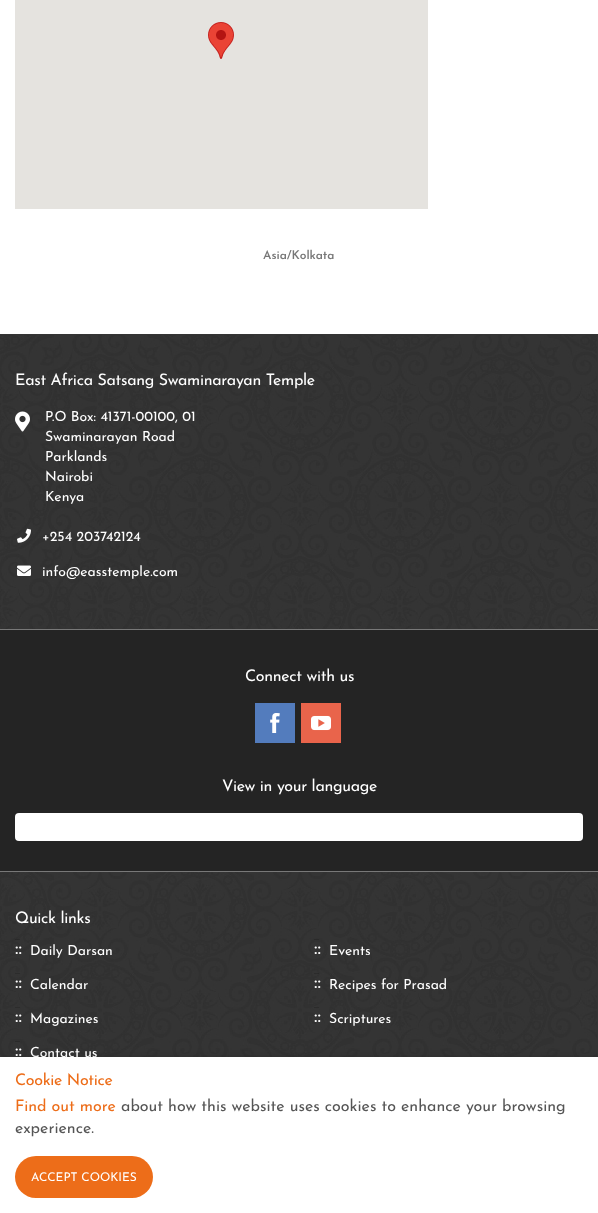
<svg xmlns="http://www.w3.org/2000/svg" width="598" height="1213">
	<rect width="100%" height="100%" fill="#FFFFFF" />
	<rect x="15" y="0" width="413" height="209" fill="#E5E3DF" />
	<image x="208" y="22" width="26" height="37" href="assets/img1.png" />
	<text x="263" y="259" font-family="Josefin Sans" font-size="12" font-weight="600" fill="#777777">Asia/Kolkata</text>
	<rect x="0" y="334" width="598" height="723" fill="#343434" />
	<image x="0" y="335" width="597" height="722" href="assets/img2.png" />
	<text x="15" y="385" font-family="Josefin Sans" font-size="16" font-weight="100" letter-spacing="-0.3" fill="#FFFFFF">East Africa Satsang Swaminarayan Temple</text>
	<image x="15" y="411" width="15" height="21" href="assets/img3.png" />
	<g font-family="Josefin Sans" font-size="14" font-weight="100" fill="#FFFFFF">
		<text x="45" y="421">P.O Box: 41371-00100, 01</text>
		<text x="45" y="441">Swaminarayan Road</text>
		<text x="45" y="461">Parklands</text>
		<text x="45" y="481">Nairobi</text>
		<text x="45" y="501">Kenya</text>
	</g>
	<image x="17" y="528" width="14" height="15" href="assets/img4.png" />
	<text x="42" y="541" font-family="Josefin Sans" font-size="14" font-weight="100" fill="#FFFFFF">+254 203742124</text>
	<image x="17" y="565" width="14" height="11" href="assets/img5.png" />
	<text x="42" y="576" font-family="Josefin Sans" font-size="14" font-weight="100" fill="#FFFFFF">info@easstemple.com</text>
	<rect x="0" y="630" width="598" height="241" fill="#242424" />
	<rect x="0" y="629" width="598" height="1" fill="#787878" />
	<rect x="0" y="871" width="598" height="1" fill="#787878" />
	<text x="245" y="681" font-family="Josefin Sans" font-size="16" font-weight="100" letter-spacing="-0.3" fill="#FFFFFF">Connect with us</text>
	<image x="255" y="703" width="40" height="40" href="assets/img6.png" />
	<image x="301" y="703" width="40" height="40" href="assets/img7.png" />
	<text x="222" y="791" font-family="Josefin Sans" font-size="16" font-weight="100" letter-spacing="-0.3" fill="#FFFFFF">View in your language</text>
	<rect x="15" y="813" width="568" height="28" rx="4" fill="#FFFFFF" />
	<text x="15" y="923" font-family="Josefin Sans" font-size="16" font-weight="100" letter-spacing="-0.3" fill="#FFFFFF">Quick links</text>
	<rect x="15" y="939" width="5" height="1" fill="#181818" fill-opacity="0.3" />
	<text x="15" y="954" font-family="Josefin Sans" font-size="20" font-weight="100" fill="#FFFFFF">::</text>
	<text x="30" y="955" font-family="Josefin Sans" font-size="14" font-weight="100" fill="#FFFFFF">Daily Darsan</text>
	<rect x="314" y="939" width="5" height="1" fill="#2A2A2A" />
	<text x="314" y="954" font-family="Josefin Sans" font-size="20" font-weight="100" fill="#FFFFFF">::</text>
	<text x="329" y="955" font-family="Josefin Sans" font-size="14" font-weight="100" fill="#FFFFFF">Events</text>
	<rect x="15" y="973" width="5" height="1" fill="#2C2C2C" />
	<text x="15" y="988" font-family="Josefin Sans" font-size="20" font-weight="100" fill="#FFFFFF">::</text>
	<text x="30" y="989" font-family="Josefin Sans" font-size="14" font-weight="100" fill="#FFFFFF">Calendar</text>
	<rect x="314" y="973" width="5" height="1" fill="#181818" fill-opacity="0.3" />
	<text x="314" y="988" font-family="Josefin Sans" font-size="20" font-weight="100" fill="#FFFFFF">::</text>
	<text x="329" y="989" font-family="Josefin Sans" font-size="14" font-weight="100" fill="#FFFFFF">Recipes for Prasad</text>
	<rect x="15" y="1007" width="5" height="1" fill="#2C2C2C" />
	<text x="15" y="1022" font-family="Josefin Sans" font-size="20" font-weight="100" fill="#FFFFFF">::</text>
	<text x="30" y="1023" font-family="Josefin Sans" font-size="14" font-weight="100" fill="#FFFFFF">Magazines</text>
	<rect x="314" y="1007" width="5" height="1" fill="#2B2B2B" />
	<text x="314" y="1022" font-family="Josefin Sans" font-size="20" font-weight="100" fill="#FFFFFF">::</text>
	<text x="329" y="1023" font-family="Josefin Sans" font-size="14" font-weight="100" fill="#FFFFFF">Scriptures</text>
	<rect x="15" y="1041" width="5" height="1" fill="#2A2A2A" />
	<text x="15" y="1056" font-family="Josefin Sans" font-size="20" font-weight="100" fill="#FFFFFF">::</text>
	<text x="30" y="1057" font-family="Josefin Sans" font-size="14" font-weight="100" fill="#FFFFFF">Contact us</text>
	<rect x="0" y="1057" width="598" height="156" fill="#000000" fill-opacity="0.1" filter="blur(2.5px)" />
	<rect x="0" y="1057" width="598" height="156" fill="#FFFFFF" />
	<text x="15" y="1085" font-family="Josefin Sans" font-size="16" font-weight="100" letter-spacing="-0.3" fill="#ED6D19">Cookie Notice</text>
	<text x="15" y="1111" font-family="Josefin Sans" font-size="16" font-weight="100" fill="#ED6D19">Find out more</text>
	<g font-family="Josefin Sans" font-size="16" font-weight="100" fill="#555555">
		<text x="121" y="1111">about how this website uses cookies to enhance your browsing</text>
		<text x="15" y="1133">experience.</text>
	</g>
	<rect x="15" y="1156" width="138" height="42" rx="21" fill="#ED6D19" />
	<text x="31" y="1181" font-family="Josefin Sans" font-size="12" font-weight="100" fill="#FFFFFF">ACCEPT COOKIES</text>
</svg>
